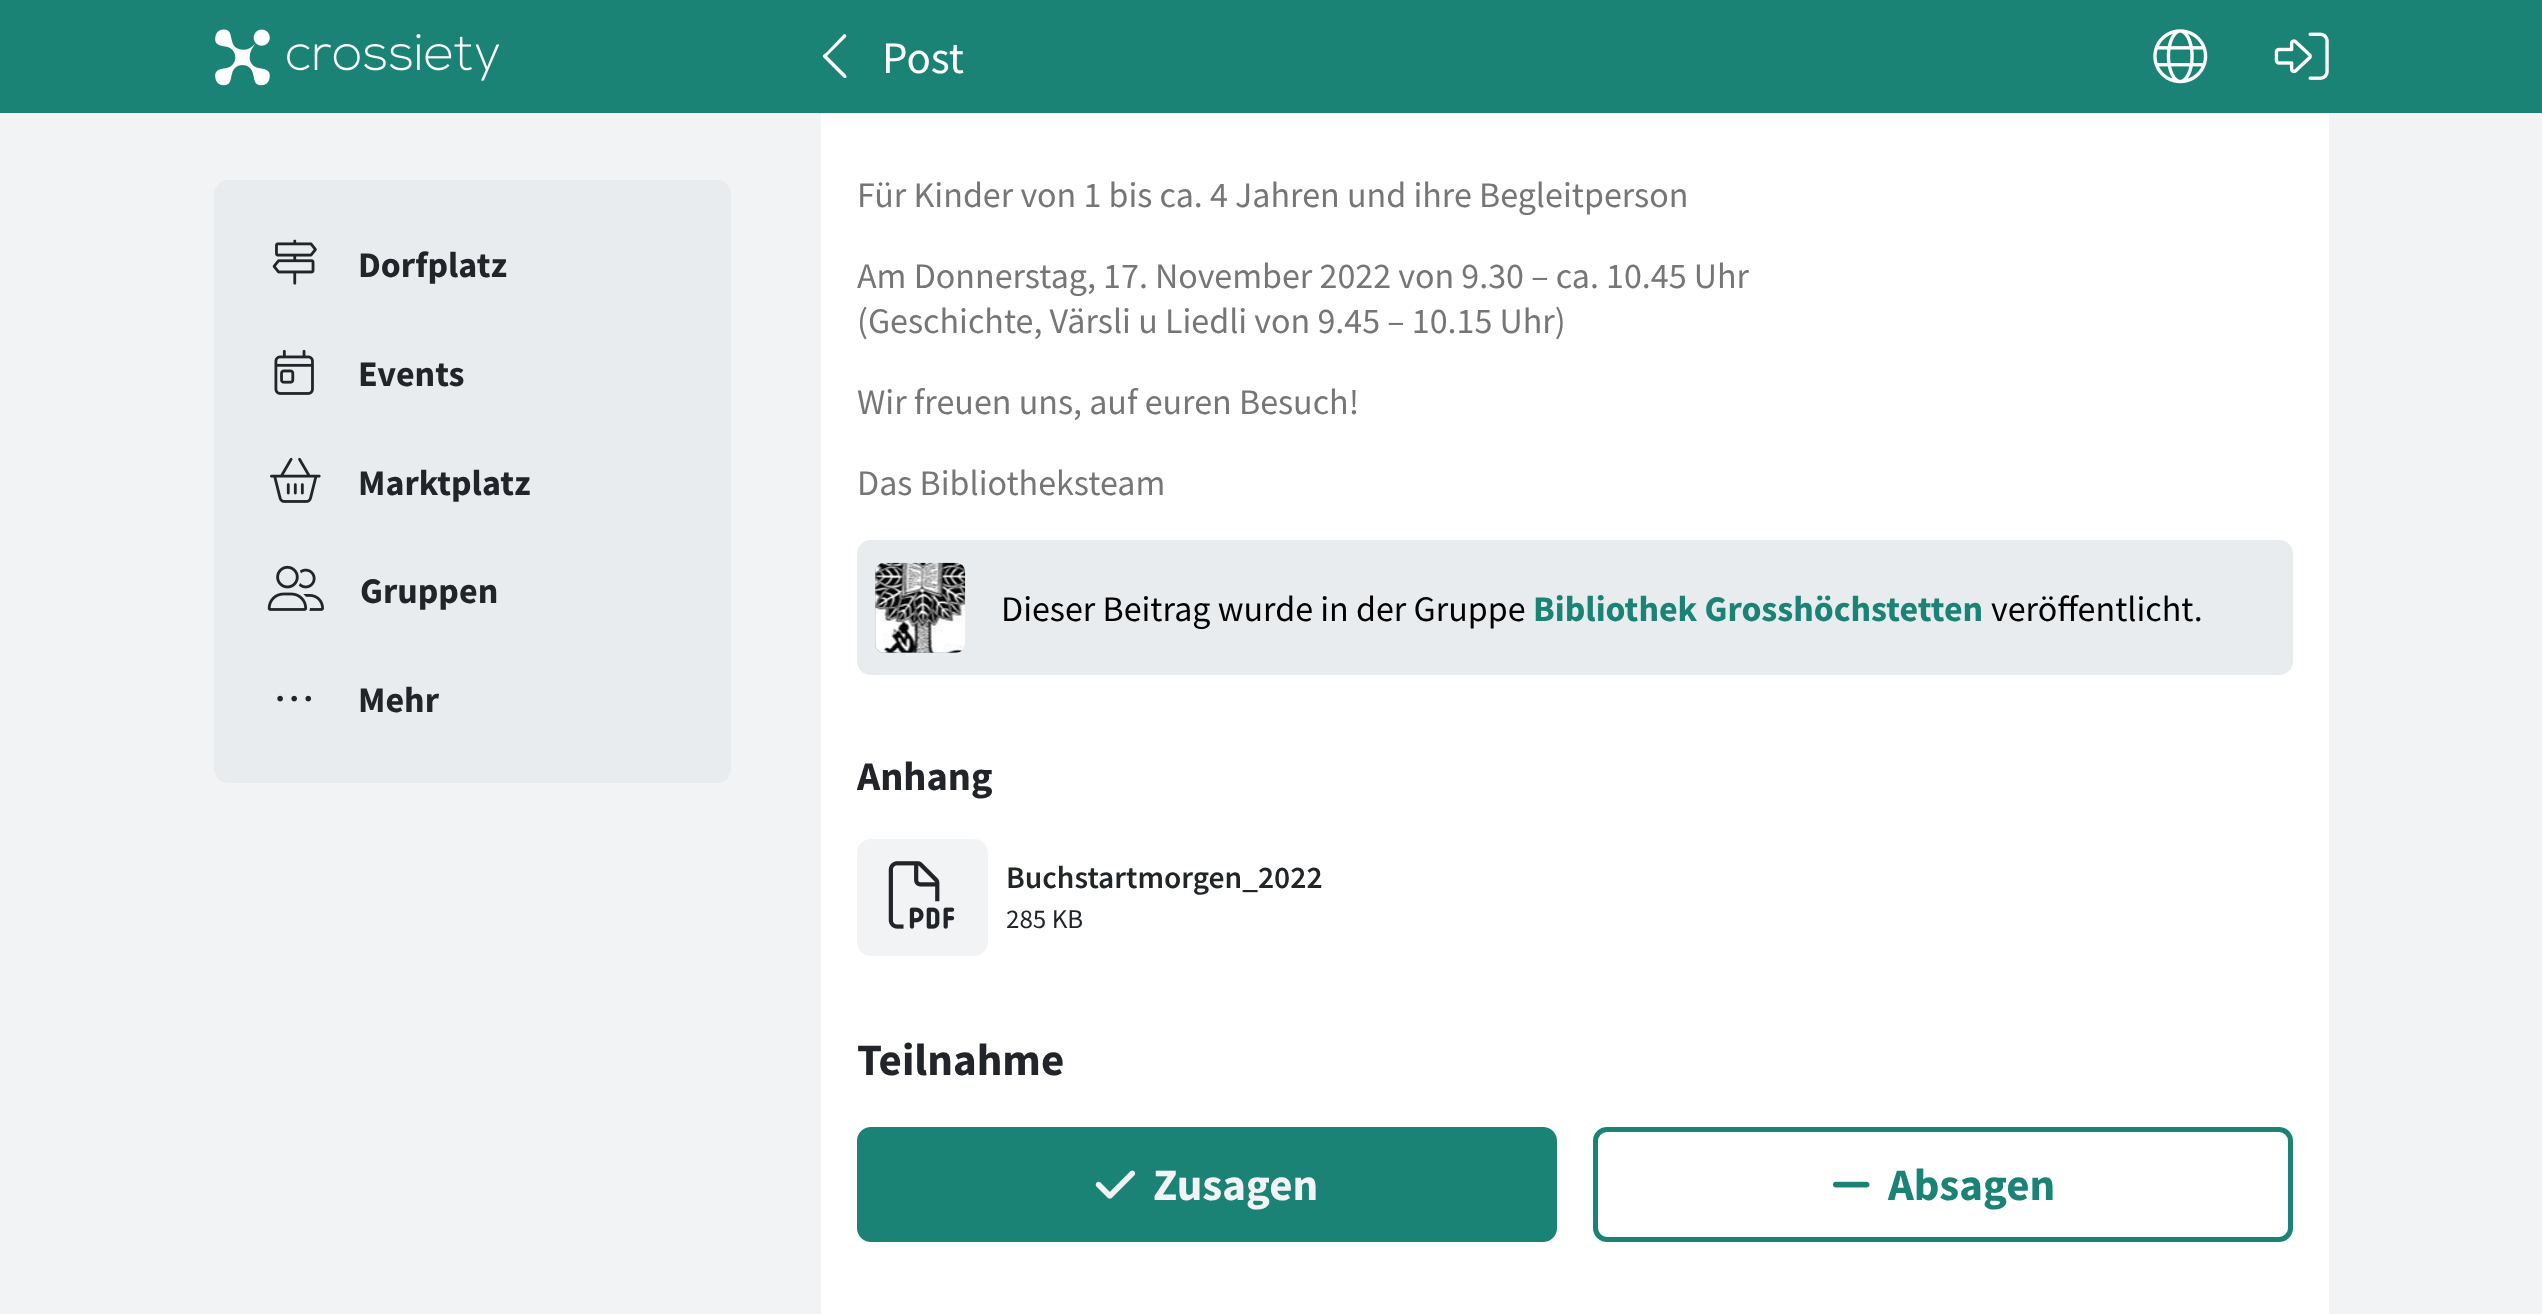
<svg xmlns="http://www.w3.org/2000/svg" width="2542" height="1314">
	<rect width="100%" height="100%" fill="#F1F3F5" />
	<rect x="0" y="0" width="2542" height="113" fill="#1B8375" />
	<image x="215" y="29" width="285" height="57" href="assets/img1.png" />
	<path d="M823 57C822 55 826 53 827 52L844 34C846 34 847 36 846 37L827 56L843 72C844 73 848 76 846 78H844Z" fill="#FFFFFF" />
	<text x="882" y="73" font-family="Source Sans Pro" font-size="45" fill="#FFFFFF">Post</text>
	<image x="2153" y="29" width="55" height="55" href="assets/img2.png" />
	<image x="2274" y="32" width="55" height="48" href="assets/img3.png" />
	<rect x="214" y="180" width="517" height="603" rx="14" fill="#E9ECEF" />
	<image x="272" y="239" width="45" height="46" href="assets/img4.png" />
	<text x="358" y="277" font-family="Source Sans Pro" font-size="36" font-weight="700" fill="#212529">Dorfplatz</text>
	<image x="274" y="349" width="40" height="46" href="assets/img5.png" />
	<text x="358" y="386" font-family="Source Sans Pro" font-size="36" font-weight="700" fill="#212529">Events</text>
	<image x="270" y="457" width="51" height="46" href="assets/img6.png" />
	<text x="358" y="495" font-family="Source Sans Pro" font-size="36" font-weight="700" fill="#212529">Marktplatz</text>
	<image x="267" y="565" width="57" height="46" href="assets/img7.png" />
	<text x="360" y="603" font-family="Source Sans Pro" font-size="36" font-weight="700" fill="#212529">Gruppen</text>
	<image x="277" y="695" width="35" height="7" href="assets/img8.png" />
	<text x="358" y="712" font-family="Source Sans Pro" font-size="36" font-weight="700" fill="#212529">Mehr</text>
	<rect x="821" y="113" width="1508" height="1201" fill="#FFFFFF" />
	<g font-family="Source Sans Pro" font-size="36" fill="#767676">
		<text x="857" y="207">Für Kinder von 1 bis ca. 4 Jahren und ihre Begleitperson</text>
		<text x="857" y="288">Am Donnerstag, 17. November 2022 von 9.30 – ca. 10.45 Uhr</text>
		<text x="857" y="333">(Geschichte, Värsli u Liedli von 9.45 – 10.15 Uhr)</text>
		<text x="857" y="414">Wir freuen uns, auf euren Besuch!</text>
		<text x="857" y="495">Das Bibliotheksteam</text>
	</g>
	<rect x="857" y="540" width="1436" height="135" rx="14" fill="#E9ECEF" />
	<rect x="875" y="563" width="90" height="90" rx="9" fill="#ADB5BD" />
	<image x="875" y="562" width="91" height="91" href="assets/img9.png" />
	<text x="1001" y="621" font-family="Source Sans Pro" font-size="36" fill="#000000">Dieser Beitrag wurde in der Gruppe</text>
	<text x="1533" y="621" font-family="Source Sans Pro" font-size="36" font-weight="700" fill="#1B8375">Bibliothek Grosshöchstetten</text>
	<text x="1991" y="621" font-family="Source Sans Pro" font-size="36" fill="#000000">veröffentlicht.</text>
	<text x="857" y="790" font-family="Source Sans Pro" font-size="40.5" font-weight="700" fill="#212529">Anhang</text>
	<rect x="857" y="839" width="131" height="117" rx="14" fill="#F1F3F5" />
	<image x="888" y="861" width="67" height="68" href="assets/img10.png" />
	<g font-family="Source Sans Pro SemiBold" font-size="31.5" font-weight="600" fill="#212529">
		<text x="1006" y="888">Buchstartm</text>
		<text x="1164" y="888">orgen_2022</text>
	</g>
	<text x="1006" y="928" font-family="Source Sans Pro" font-size="27" fill="#212529">285 KB</text>
	<text x="857" y="1075" font-family="Source Sans Pro" font-size="45" font-weight="700" fill="#212529">Teilnahme</text>
	<rect x="859.5" y="1129.5" width="695" height="110" rx="11.5" fill="#1B8375" stroke="#1B8375" stroke-width="5" />
	<image x="1095" y="1170" width="41" height="29" href="assets/img11.png" />
	<text x="1153" y="1200" font-family="Source Sans Pro" font-size="45" font-weight="700" fill="#F1F3F5">Zusagen</text>
	<rect x="1595.5" y="1129.5" width="695" height="110" rx="11.5" fill="none" stroke="#1B8375" stroke-width="5" />
	<image x="1832" y="1181" width="38" height="7" href="assets/img12.png" />
	<text x="1888" y="1200" font-family="Source Sans Pro" font-size="45" font-weight="700" fill="#1B8375">Absagen</text>
</svg>
